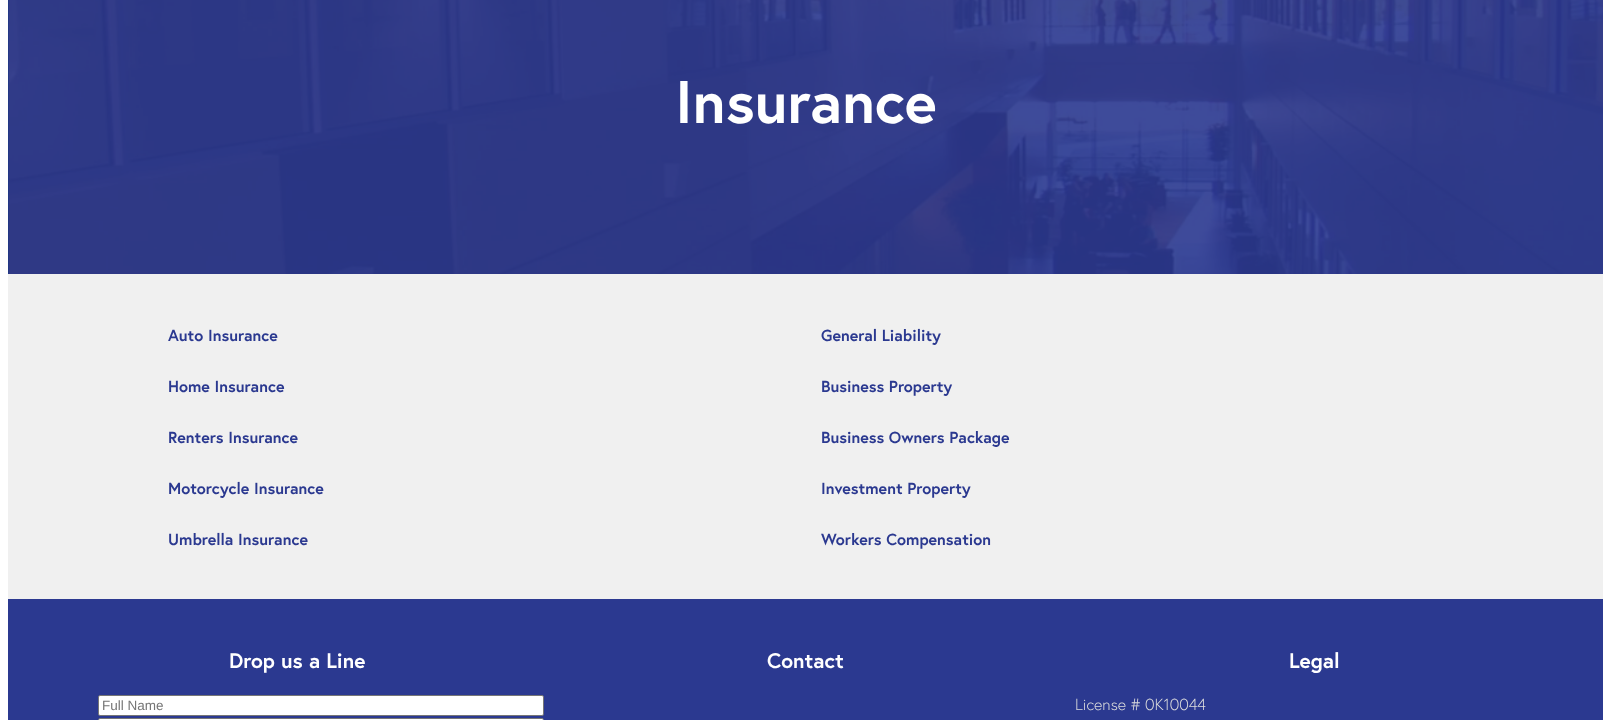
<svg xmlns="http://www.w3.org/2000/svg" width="1611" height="720">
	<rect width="100%" height="100%" fill="#FFFFFF" />
	<rect x="8" y="0" width="1" height="274" fill="#1E3783" />
	<image x="8" y="0" width="1595" height="274" href="assets/img1.png" />
	<text x="675" y="123" font-family="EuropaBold" font-size="60" font-weight="700" fill="#FFFFFF">Insurance</text>
	<rect x="8" y="274" width="1595" height="325" fill="#F0F0F0" />
	<g font-family="EuropaBold" font-size="16" font-weight="700" fill="#2B3990">
		<text x="168" y="341">Auto Insurance</text>
		<text x="168" y="392">Home Insurance</text>
		<text x="168" y="443">Renters Insurance</text>
		<text x="168" y="494">Motorcycle Insurance</text>
		<text x="168" y="545">Umbrella Insurance</text>
		<text x="821" y="341">General Liability</text>
		<text x="821" y="392">Business Property</text>
		<text x="821" y="443">Business Owners Package</text>
		<text x="821" y="494">Investment Property</text>
		<text x="821" y="545">Workers Compensation</text>
	</g>
	<rect x="8" y="599" width="1595" height="121" fill="#2B3990" />
	<text x="229" y="668" font-family="EuropaBold" font-size="21" font-weight="700" fill="#FFFFFF">Drop us a Line</text>
	<rect x="98.5" y="695.5" width="445" height="20" rx="1.5" fill="#FFFFFF" stroke="#767676" />
	<text x="102" y="710" font-family="Liberation Sans" font-size="13.5" fill="#757575">Full Name</text>
	<rect x="98.5" y="718.5" width="445" height="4" rx="1.5" fill="#FFFFFF" stroke="#767676" />
	<g font-family="EuropaBold" font-size="21" font-weight="700" fill="#FFFFFF">
		<text x="767" y="668">Contact</text>
		<text x="1289" y="668">Legal</text>
	</g>
	<text x="1075" y="710" font-family="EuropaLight" font-size="16" font-weight="300" fill="#DDDDDD">License # 0K10044</text>
</svg>
